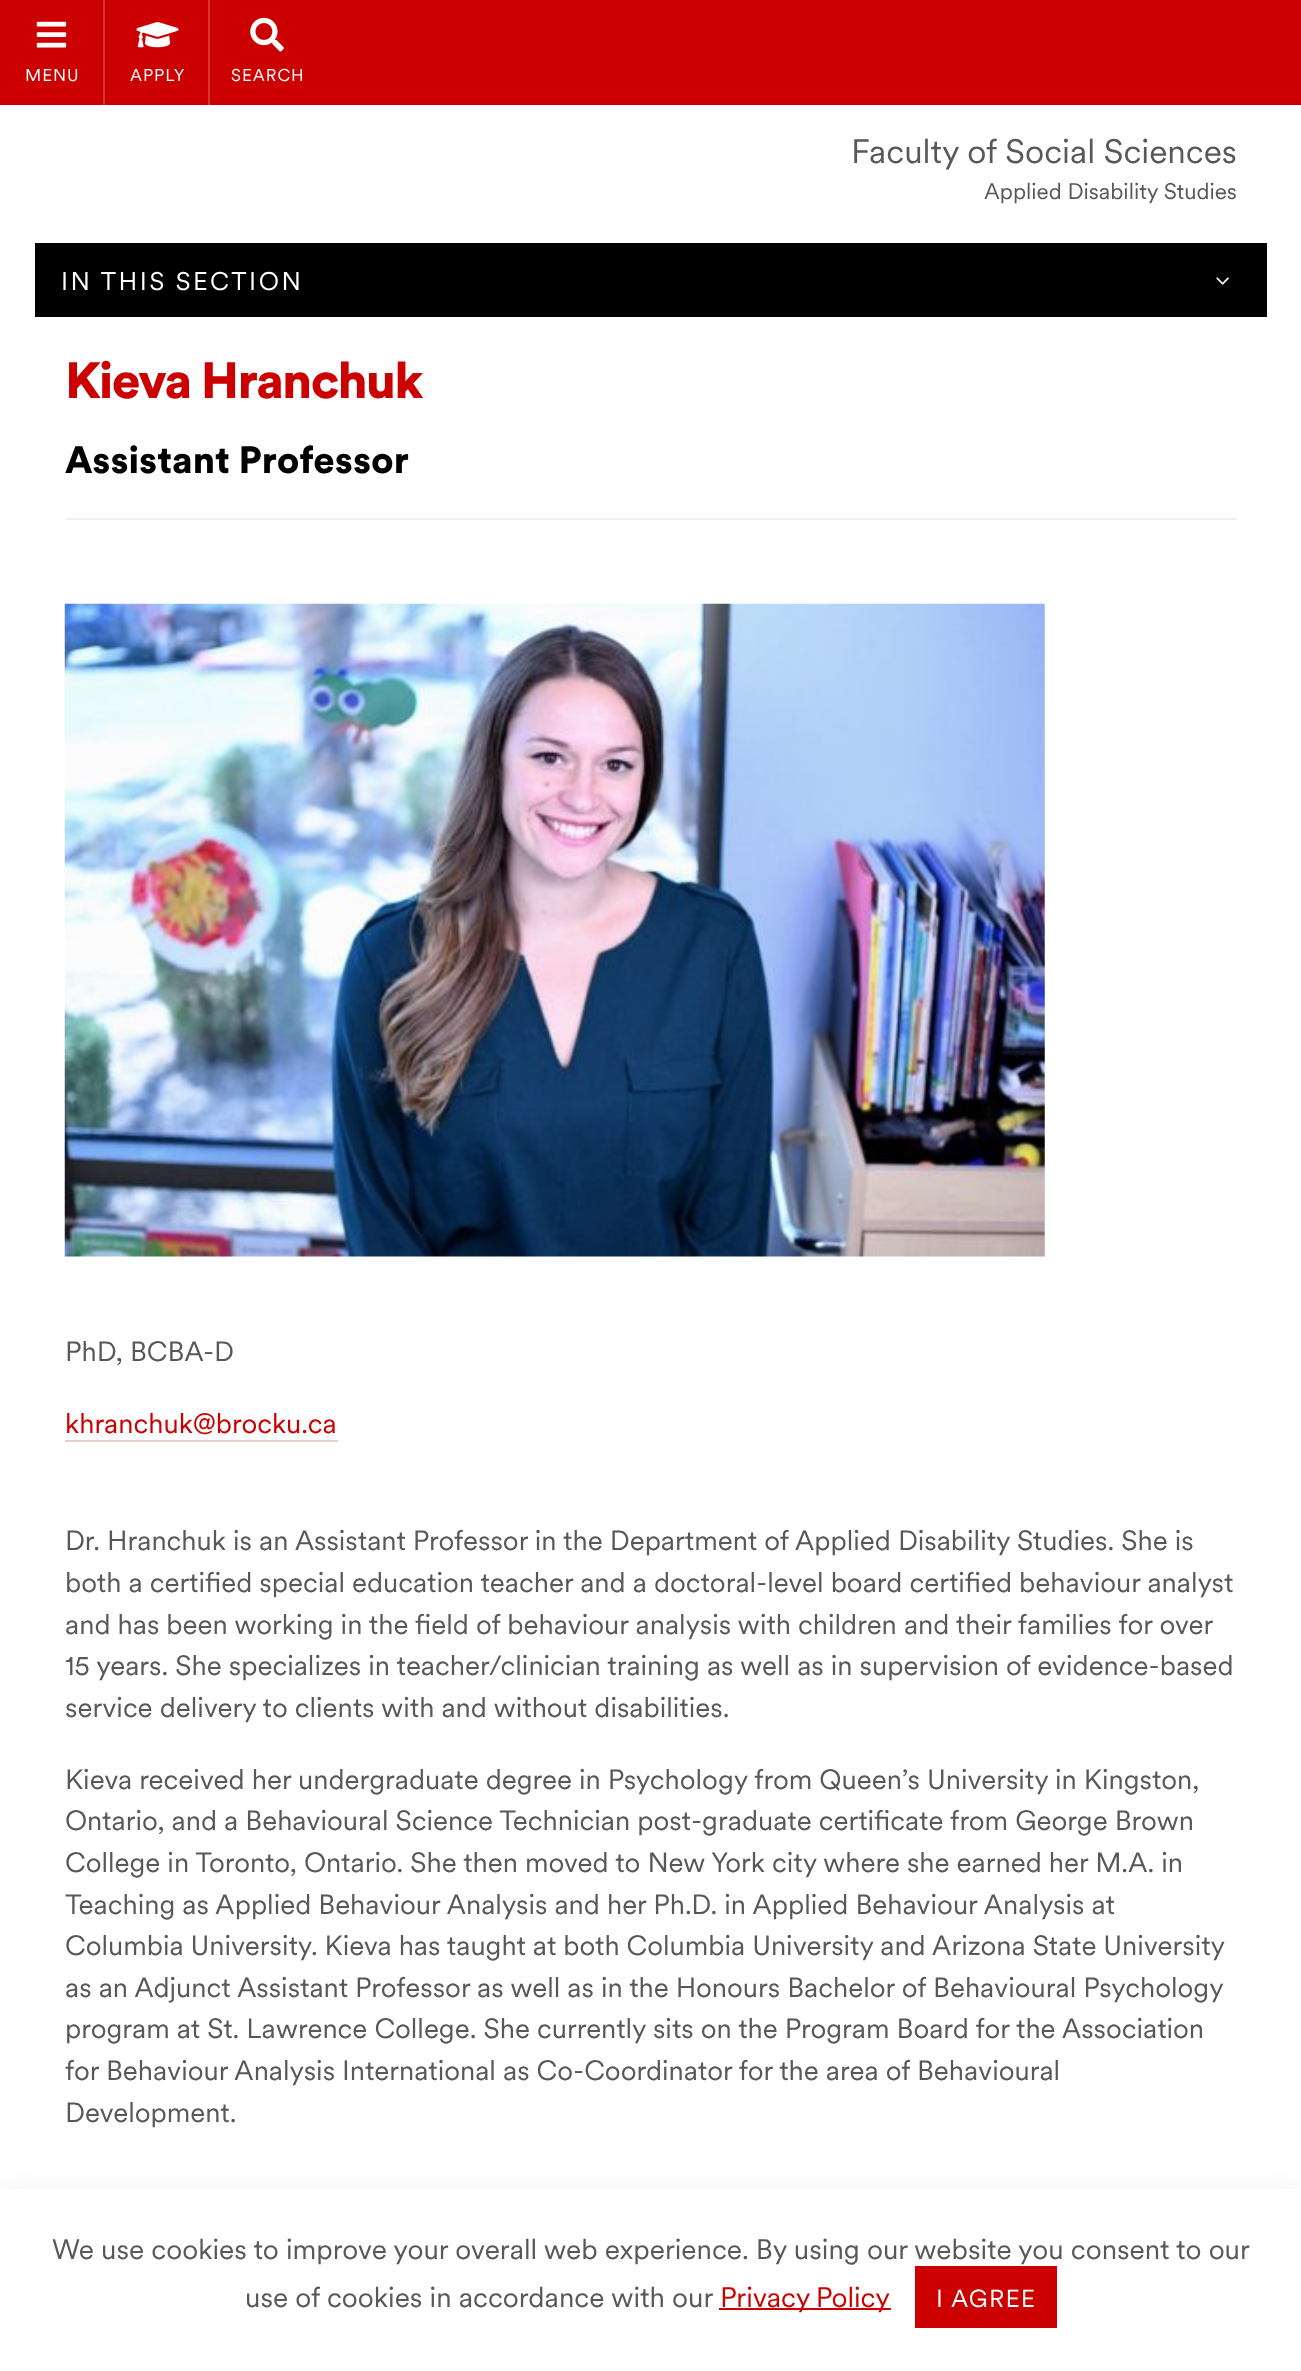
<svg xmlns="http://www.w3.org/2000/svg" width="1301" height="2371">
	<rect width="100%" height="100%" fill="#CC0000" />
	<rect x="103" y="0" width="2" height="105" fill="#D63333" />
	<image x="36" y="21" width="31" height="27" href="assets/img1.png" />
	<text x="25" y="81" font-family="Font" font-size="17" letter-spacing="1" fill="#FFFFFF">MENU</text>
	<rect x="208" y="0" width="2" height="105" fill="#D63333" />
	<image x="136" y="22" width="43" height="26" href="assets/img2.png" />
	<text x="130" y="81" font-family="Font" font-size="17" letter-spacing="1" fill="#FFFFFF">APPLY</text>
	<image x="250" y="17" width="34" height="35" href="assets/img3.png" />
	<text x="231" y="81" font-family="Font" font-size="17" letter-spacing="1" fill="#FFFFFF">SEARCH</text>
	<rect x="0" y="105" width="1301" height="2084" fill="#FFFFFF" />
	<text x="851" y="163" font-family="Font" font-size="33.6" fill="#585858">Faculty of Social Sciences</text>
	<text x="984" y="199" font-family="Font" font-size="22.4" fill="#585858">Applied Disability Studies</text>
	<rect x="35" y="243" width="1232" height="74" fill="#000000" />
	<text x="61" y="290" font-family="Font" font-size="25.25" letter-spacing="2.5" fill="#FFFFFF">IN THIS SECTION</text>
	<image x="1216" y="277" width="13" height="8" href="assets/img4.png" />
	<text x="65" y="398" font-family="Font" font-size="50.5" font-weight="900" letter-spacing="-1.5" fill="#CC0000">Kieva Hranchuk</text>
	<text x="65" y="473" font-family="Font" font-size="37.75" font-weight="900" fill="#000000">Assistant Professor</text>
	<rect x="65" y="518" width="1172" height="2" fill="#F0F0F0" />
	<image x="64" y="603" width="981" height="654" href="assets/img5.png" />
	<text x="65" y="1361" font-family="Font" font-size="27.7" fill="#585858">PhD, BCBA-D</text>
	<text x="65" y="1433" font-family="Font" font-size="27.7" fill="#CC0000">khranchuk@brocku.ca</text>
	<rect x="65" y="1440" width="273" height="2" fill="#EECCCC" />
	<g font-family="Font" font-size="27.7" fill="#585858">
		<text x="65" y="1550">Dr. Hranchuk is an Assistant Professor in the Department of Applied Disability Studies. She is</text>
		<text x="65" y="1592">both a certified special education teacher and a doctoral-level board certified behaviour analyst</text>
		<text x="65" y="1634">and has been working in the field of behaviour analysis with children and their families for over</text>
		<text x="65" y="1675">15 years. She specializes in teacher/clinician training as well as in supervision of evidence-based</text>
		<text x="65" y="1717">service delivery to clients with and without disabilities.</text>
		<text x="65" y="1789">Kieva received her undergraduate degree in Psychology from Queen’s University in Kingston,</text>
		<text x="65" y="1830">Ontario, and a Behavioural Science Technician post-graduate certificate from George Brown</text>
		<text x="65" y="1872">College in Toronto, Ontario. She then moved to New York city where she earned her M.A. in</text>
		<text x="65" y="1914">Teaching as Applied Behaviour Analysis and her Ph.D. in Applied Behaviour Analysis at</text>
		<text x="65" y="1955" word-spacing="-0.1">Columbia University. Kieva has taught at both Columbia University and Arizona State University</text>
		<text x="65" y="1997">as an Adjunct Assistant Professor as well as in the Honours Bachelor of Behavioural Psychology</text>
		<text x="65" y="2038">program at St. Lawrence College. She currently sits on the Program Board for the Association</text>
		<text x="65" y="2080">for Behaviour Analysis International as Co-Coordinator for the area of Behavioural</text>
		<text x="65" y="2122">Development.</text>
	</g>
	<rect x="0" y="2207" width="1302" height="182" fill="#000000" fill-opacity="0.2" filter="blur(17.5px)" />
	<rect x="0" y="2189" width="1301" height="182" fill="#FFFFFF" />
	<g font-family="Font" font-size="28" fill="#585858">
		<text x="52" y="2259">We use cookies to improve your overall web experience. By using our website you consent to our</text>
		<text x="245" y="2307">use of cookies in accordance with our</text>
	</g>
	<rect x="719" y="2308" width="172" height="2" fill="#CC0000" />
	<text x="720" y="2307" word-spacing="-1" font-family="Font" font-size="28" fill="#CC0000">Privacy Policy</text>
	<rect x="915" y="2266" width="142" height="62" fill="#CC0000" />
	<text x="936" y="2307" font-family="Font" font-size="24.5" letter-spacing="1.25" fill="#FFFFFF">I AGREE</text>
</svg>
